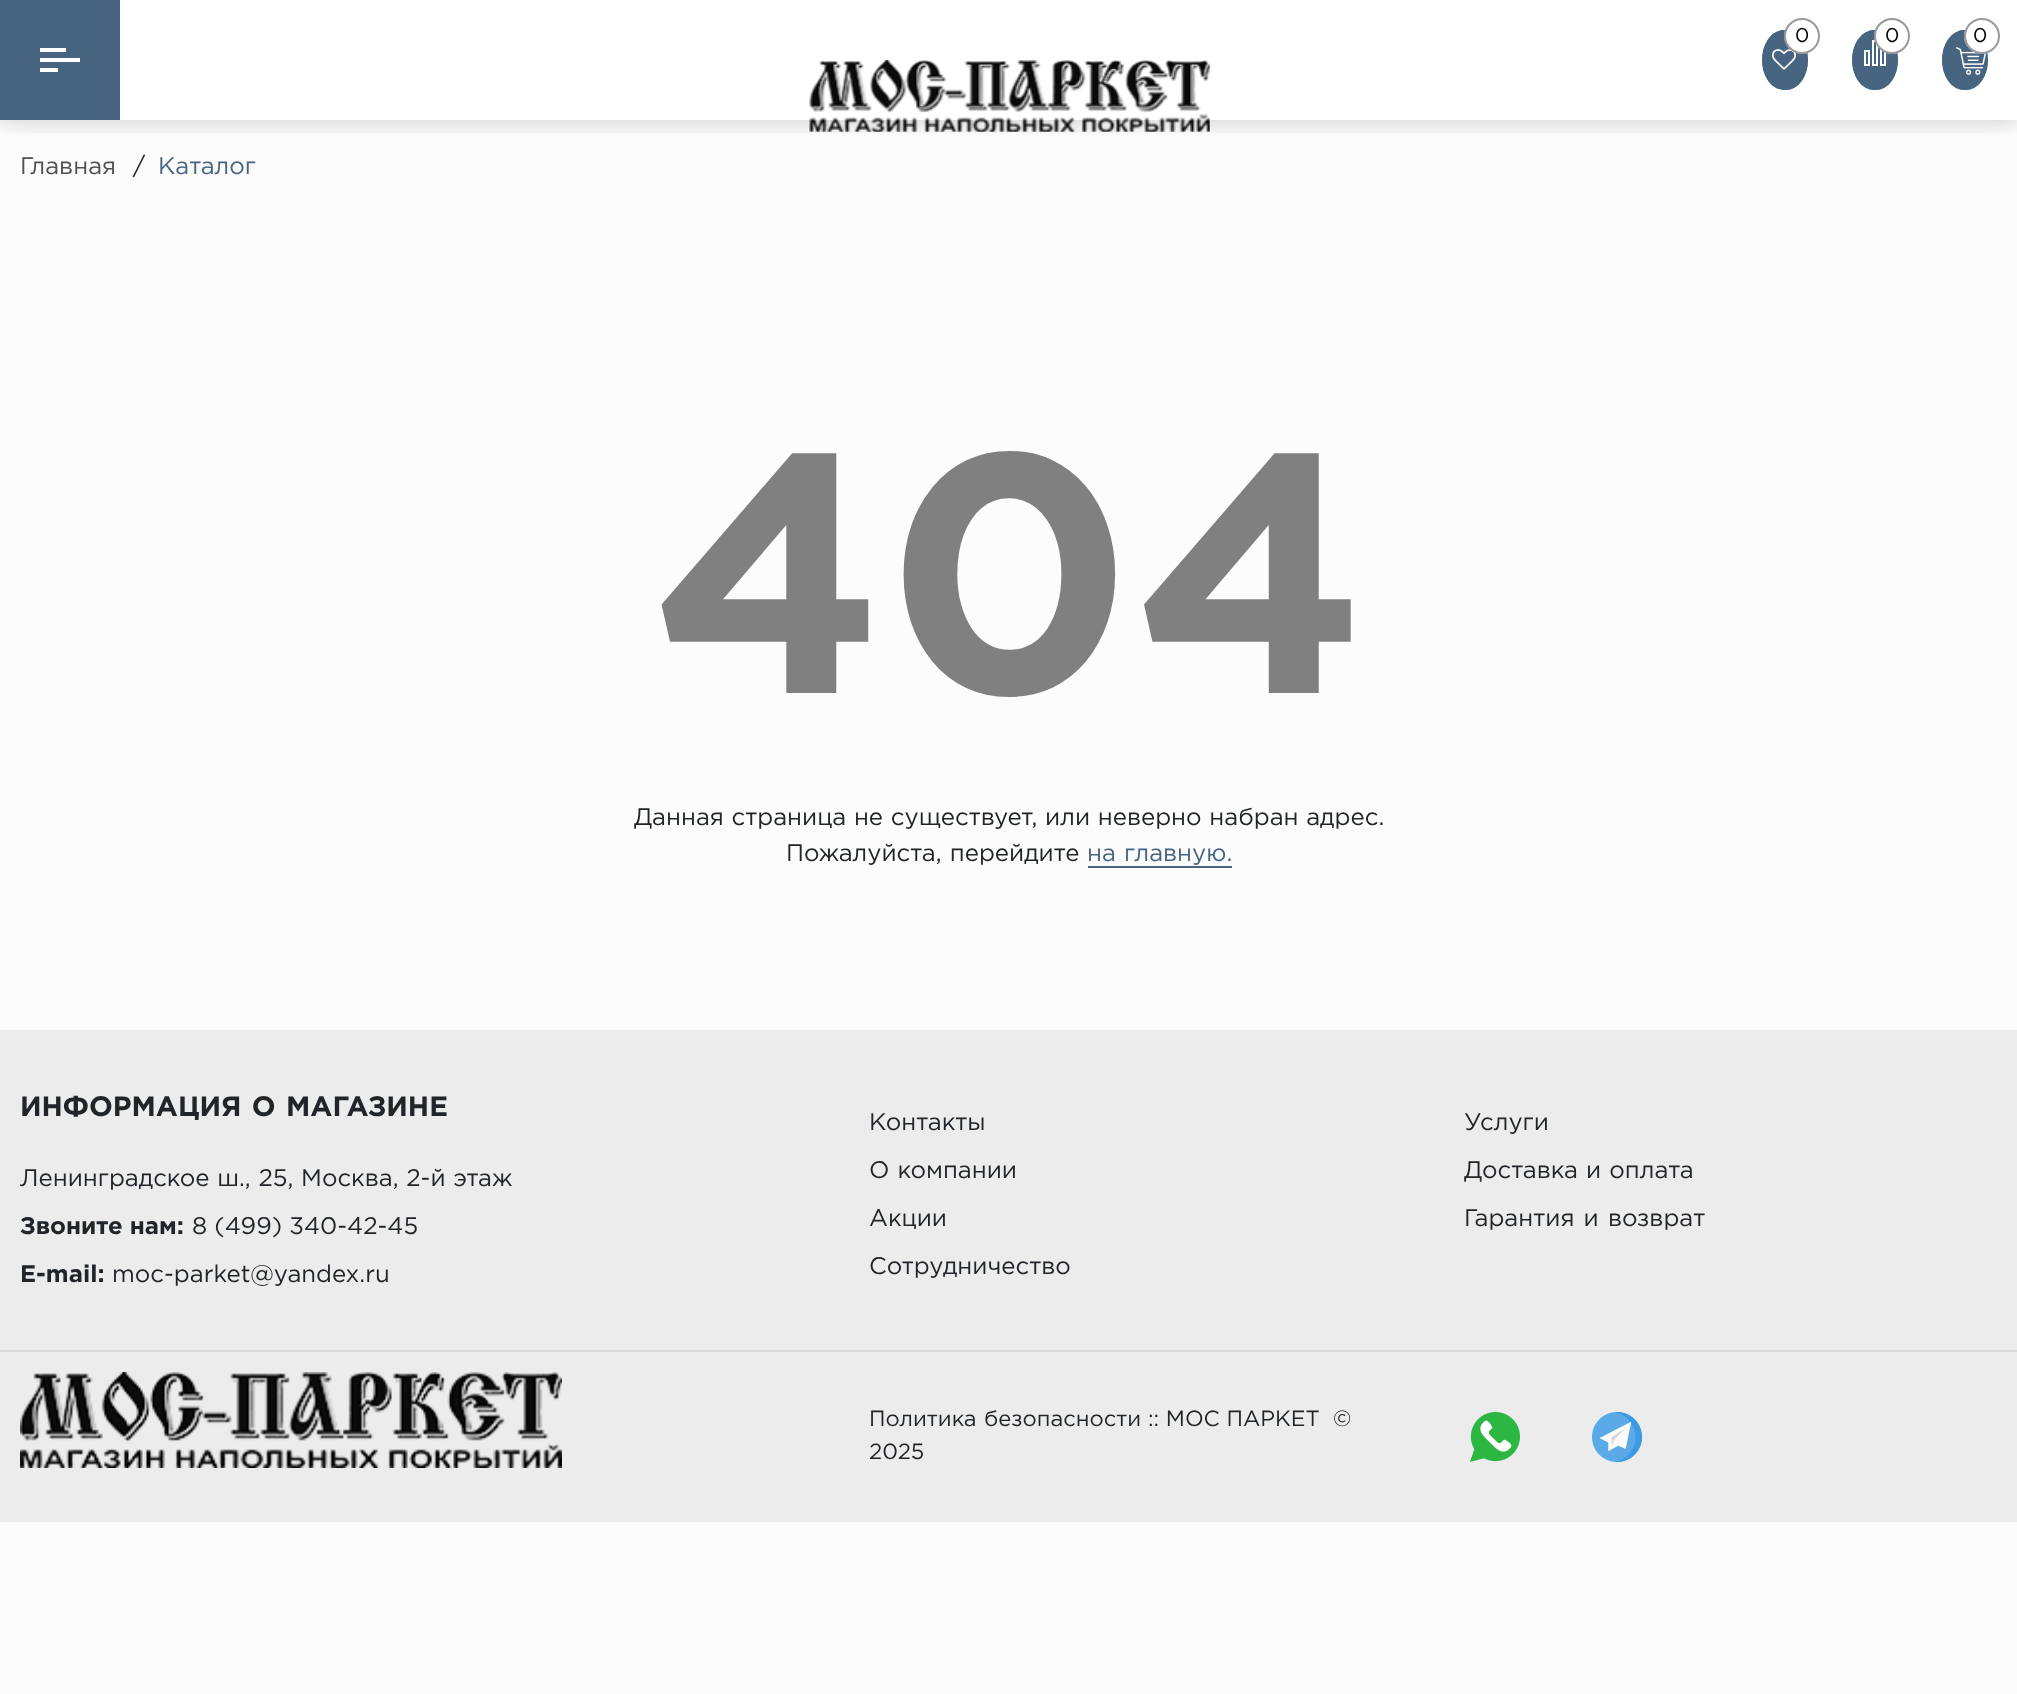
<svg xmlns="http://www.w3.org/2000/svg" width="2017" height="1694">
	<defs>
		<clipPath id="clip1"><rect x="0" y="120" width="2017" height="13" /></clipPath>
	</defs>
	<rect width="100%" height="100%" fill="#FCFCFC" />
	<rect x="0" y="0" width="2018" height="120" fill="#000000" fill-opacity="0.1" filter="blur(10px)" />
	<rect x="120" y="0" width="1897" height="120" fill="#FFFFFF" />
	<g clip-path="url(#clip1)">
		<rect x="0" y="0" width="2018" height="120" fill="#000000" fill-opacity="0.1" filter="blur(15px)" />
	</g>
	<rect x="0" y="0" width="120" height="120" fill="#476480" />
	<rect x="40" y="58" width="40" height="4" fill="#FFFFFF" />
	<rect x="40" y="48" width="26" height="4" fill="#FFFFFF" />
	<rect x="40" y="68" width="18" height="4" fill="#FFFFFF" />
	<ellipse cx="1785" cy="60" rx="23" ry="30" fill="#476480" />
	<path d="M1785 31C1814 31 1814 89 1785 89C1756 89 1756 31 1785 31Z" fill="none" stroke="#476480" stroke-width="2" />
	<image x="1772" y="49" width="24" height="21" href="assets/img1.png" />
	<circle cx="1802" cy="36" r="18" fill="#FFFFFF" />
	<circle cx="1802" cy="36" r="17" fill="none" stroke="#000000" stroke-opacity="0.4" stroke-width="2" />
	<text x="1795" y="42" font-family="Gotham" font-size="20" fill="#000000">0</text>
	<ellipse cx="1875" cy="60" rx="23" ry="30" fill="#476480" />
	<path d="M1875 31C1904 31 1904 89 1875 89C1846 89 1846 31 1875 31Z" fill="none" stroke="#476480" stroke-width="2" />
	<rect x="1873" y="41" width="4" height="24" fill="none" stroke="#FFFFFF" stroke-width="2" />
	<rect x="1881" y="45" width="4" height="20" fill="none" stroke="#FFFFFF" stroke-width="2" />
	<circle cx="1892" cy="36" r="18" fill="#FFFFFF" />
	<circle cx="1892" cy="36" r="17" fill="none" stroke="#000000" stroke-opacity="0.4" stroke-width="2" />
	<text x="1885" y="42" font-family="Gotham" font-size="20" fill="#000000">0</text>
	<rect x="1865" y="51" width="4" height="14" fill="none" stroke="#FFFFFF" stroke-width="2" />
	<ellipse cx="1965" cy="60" rx="23" ry="30" fill="#476480" />
	<path d="M1965 31C1994 31 1994 89 1965 89C1936 89 1936 31 1965 31Z" fill="none" stroke="#476480" stroke-width="2" />
	<image x="1956" y="47" width="30" height="28" href="assets/img2.png" />
	<circle cx="1982" cy="36" r="18" fill="#FFFFFF" />
	<circle cx="1982" cy="36" r="17" fill="none" stroke="#000000" stroke-opacity="0.4" stroke-width="2" />
	<text x="1973" y="42" font-family="Gotham" font-size="20" fill="#000000">0</text>
	<image x="809" y="60" width="401" height="72" href="assets/img3.png" />
	<text x="20" y="174" font-family="Gotham" font-size="24" fill="#505050">Главная</text>
	<text x="133" y="174" font-family="Gotham" font-size="24" fill="#212529">/</text>
	<text x="158" y="174" font-family="Gotham" font-size="24" fill="#476480">Каталог</text>
	<text x="651" y="693" font-family="Gotham" font-size="340" font-weight="700" fill="#808080">404</text>
	<g font-family="Gotham" font-size="24" fill="#212529">
		<text x="634" y="825" word-spacing="0.5">Данная страница не существует, или неверно набран адрес.</text>
		<text x="786" y="861" word-spacing="1">Пожалуйста, перейдите</text>
	</g>
	<text x="1087" y="861" word-spacing="1" font-family="Gotham" font-size="24" fill="#476480">на главную.</text>
	<rect x="1088" y="866" width="144" height="2" fill="#476480" />
	<rect x="0" y="1030" width="2017" height="492" fill="#ECECEC" />
	<text x="20" y="1116" word-spacing="2" font-family="Gotham" font-size="28" font-weight="700" fill="#212529">ИНФОРМАЦИЯ О МАГАЗИНЕ</text>
	<text x="20" y="1186" word-spacing="0.5" font-family="Gotham" font-size="24" fill="#212529">Ленинградское ш., 25, Москва, 2-й этаж</text>
	<text x="20" y="1234" font-family="Gotham" font-size="24" font-weight="700" fill="#212529">Звоните нам:</text>
	<text x="192" y="1234" font-family="Gotham" font-size="24" fill="#212529">8 (499) 340-42-45</text>
	<text x="20" y="1282" font-family="Gotham" font-size="24" font-weight="700" fill="#212529">E-mail:</text>
	<g font-family="Gotham" font-size="24" fill="#212529">
		<text x="112" y="1282">moc-parket@yandex.ru</text>
		<text x="869" y="1130">Контакты</text>
		<text x="869" y="1178" word-spacing="1">О компании</text>
		<text x="869" y="1226">Акции</text>
		<text x="869" y="1274">Сотрудничество</text>
		<text x="1464" y="1130">Услуги</text>
		<text x="1464" y="1178" word-spacing="1">Доставка и оплата</text>
		<text x="1464" y="1226" word-spacing="2">Гарантия и возврат</text>
	</g>
	<rect x="0" y="1350" width="2017" height="2" fill="#DBDBDB" />
	<image x="20" y="1372" width="542" height="96" href="assets/img4.png" />
	<g font-family="Gotham" font-size="22" fill="#212529">
		<text x="869" y="1426" word-spacing="1">Политика безопасности</text>
		<text x="1148" y="1426" xml:space="preserve">:: МОС ПАРКЕТ  ©</text>
		<text x="869" y="1459">2025</text>
	</g>
	<image x="1470" y="1412" width="50" height="50" href="assets/img5.png" />
	<image x="1592" y="1412" width="50" height="50" href="assets/img6.png" />
</svg>
